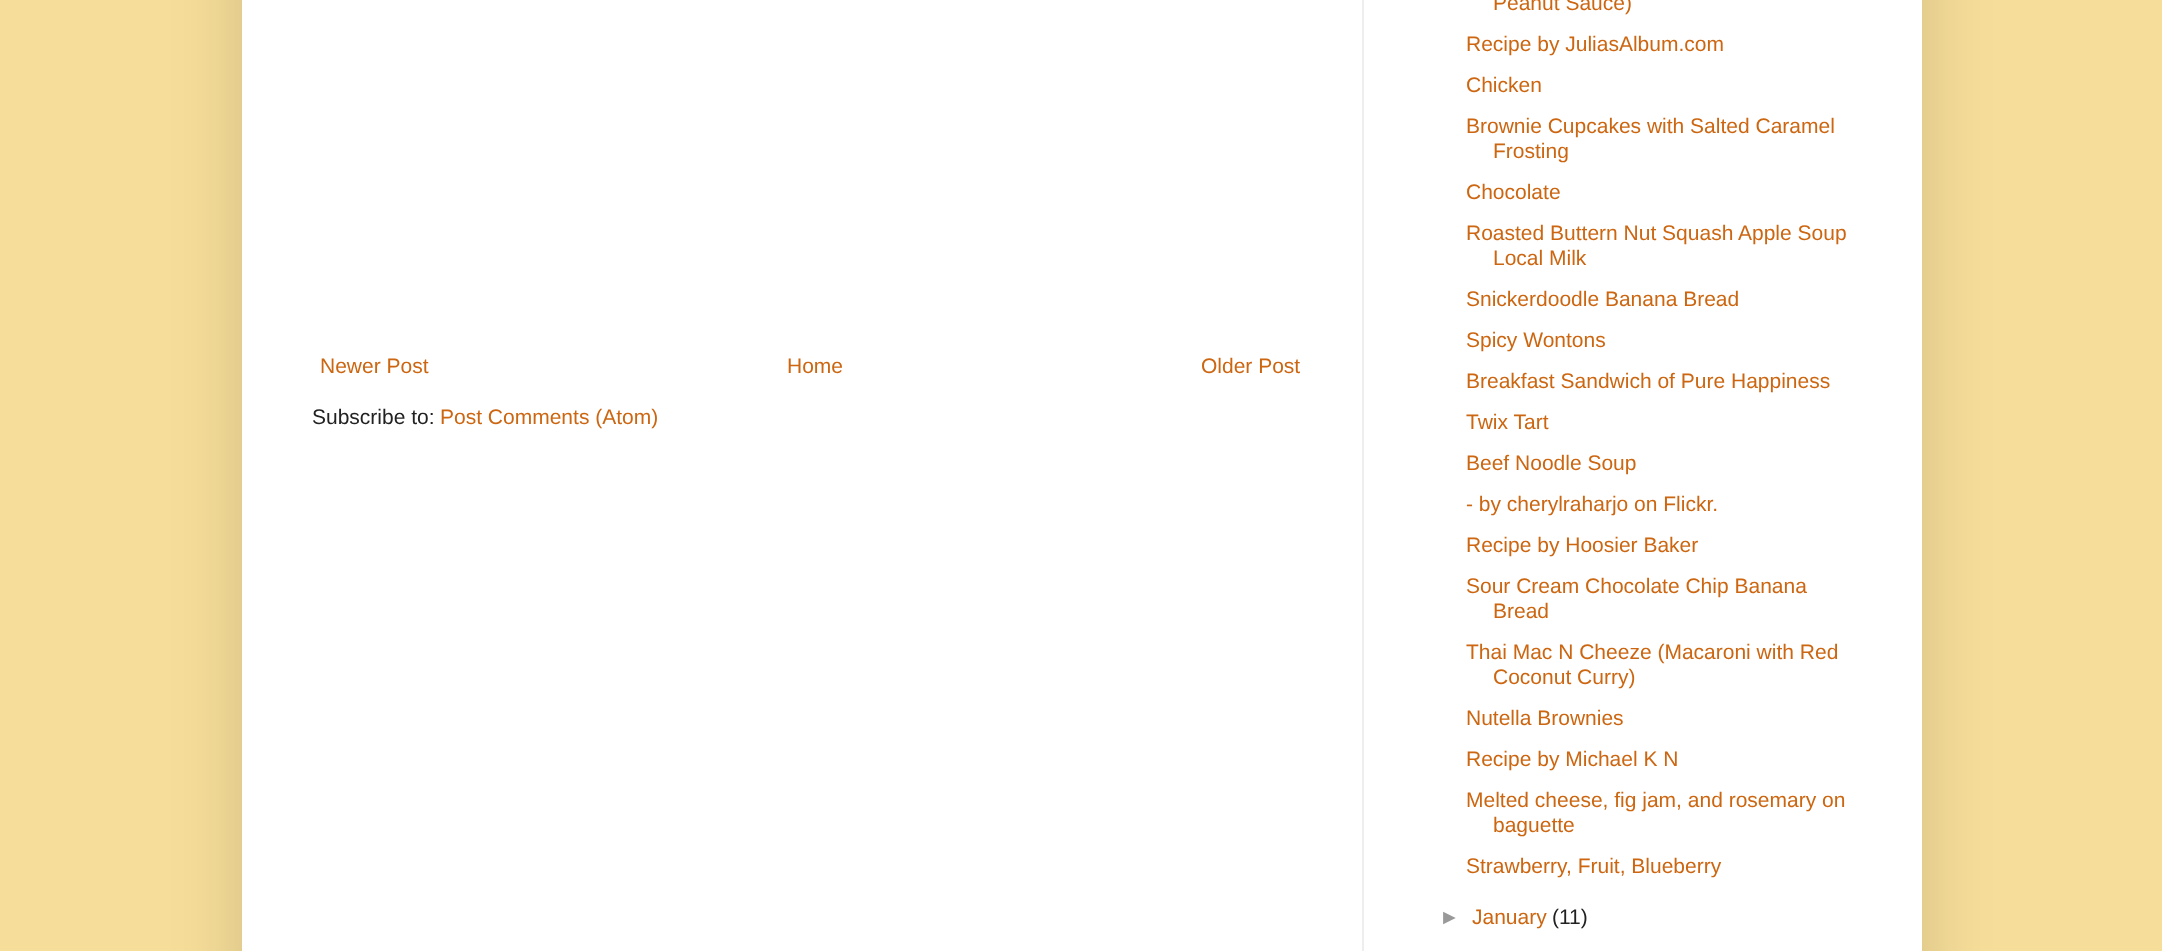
<svg xmlns="http://www.w3.org/2000/svg" width="2162" height="951">
	<rect width="100%" height="100%" fill="#F6DD99" />
	<rect x="242" y="-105" width="1680" height="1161" fill="#000000" fill-opacity="0.15" filter="blur(35px)" />
	<rect x="242" y="0" width="1680" height="951" fill="#FFFFFF" />
	<g font-family="Liberation Sans" font-size="21" fill="#CC6611">
		<text x="320" y="373">Newer Post</text>
		<text x="787" y="373">Home</text>
		<text x="1201" y="373">Older Post</text>
	</g>
	<text x="312" y="424" font-family="Liberation Sans" font-size="21" fill="#222222">Subscribe to:</text>
	<g font-family="Liberation Sans" font-size="21" fill="#CC6611">
		<text x="440" y="424">Post Comments (Atom)</text>
		<text x="1493" y="10">Peanut Sauce)</text>
		<text x="1466" y="51">Recipe by JuliasAlbum.com</text>
		<text x="1466" y="92">Chicken</text>
		<text x="1466" y="133">Brownie Cupcakes with Salted Caramel</text>
		<text x="1493" y="158">Frosting</text>
		<text x="1466" y="199">Chocolate</text>
		<text x="1466" y="240">Roasted Buttern Nut Squash Apple Soup</text>
		<text x="1493" y="265">Local Milk</text>
		<text x="1466" y="306">Snickerdoodle Banana Bread</text>
		<text x="1466" y="347">Spicy Wontons</text>
		<text x="1466" y="388">Breakfast Sandwich of Pure Happiness</text>
		<text x="1466" y="429">Twix Tart</text>
		<text x="1466" y="470">Beef Noodle Soup</text>
		<text x="1466" y="511">- by cherylraharjo on Flickr.</text>
		<text x="1466" y="552">Recipe by Hoosier Baker</text>
		<text x="1466" y="593">Sour Cream Chocolate Chip Banana</text>
		<text x="1493" y="618">Bread</text>
		<text x="1466" y="659">Thai Mac N Cheeze (Macaroni with Red</text>
		<text x="1493" y="684">Coconut Curry)</text>
		<text x="1466" y="725">Nutella Brownies</text>
		<text x="1466" y="766">Recipe by Michael K N</text>
		<text x="1466" y="807">Melted cheese, fig jam, and rosemary on</text>
		<text x="1493" y="832">baguette</text>
		<text x="1466" y="873">Strawberry, Fruit, Blueberry</text>
	</g>
	<text x="1439" y="924" font-family="Liberation Sans" font-size="21" fill="#999999">►</text>
	<text x="1472" y="924" font-family="Liberation Sans" font-size="21" fill="#CC6611">January</text>
	<text x="1552" y="924" font-family="Liberation Sans" font-size="21" fill="#222222">(11)</text>
	<rect x="1362" y="0" width="2" height="951" fill="#EEEEEE" />
</svg>
